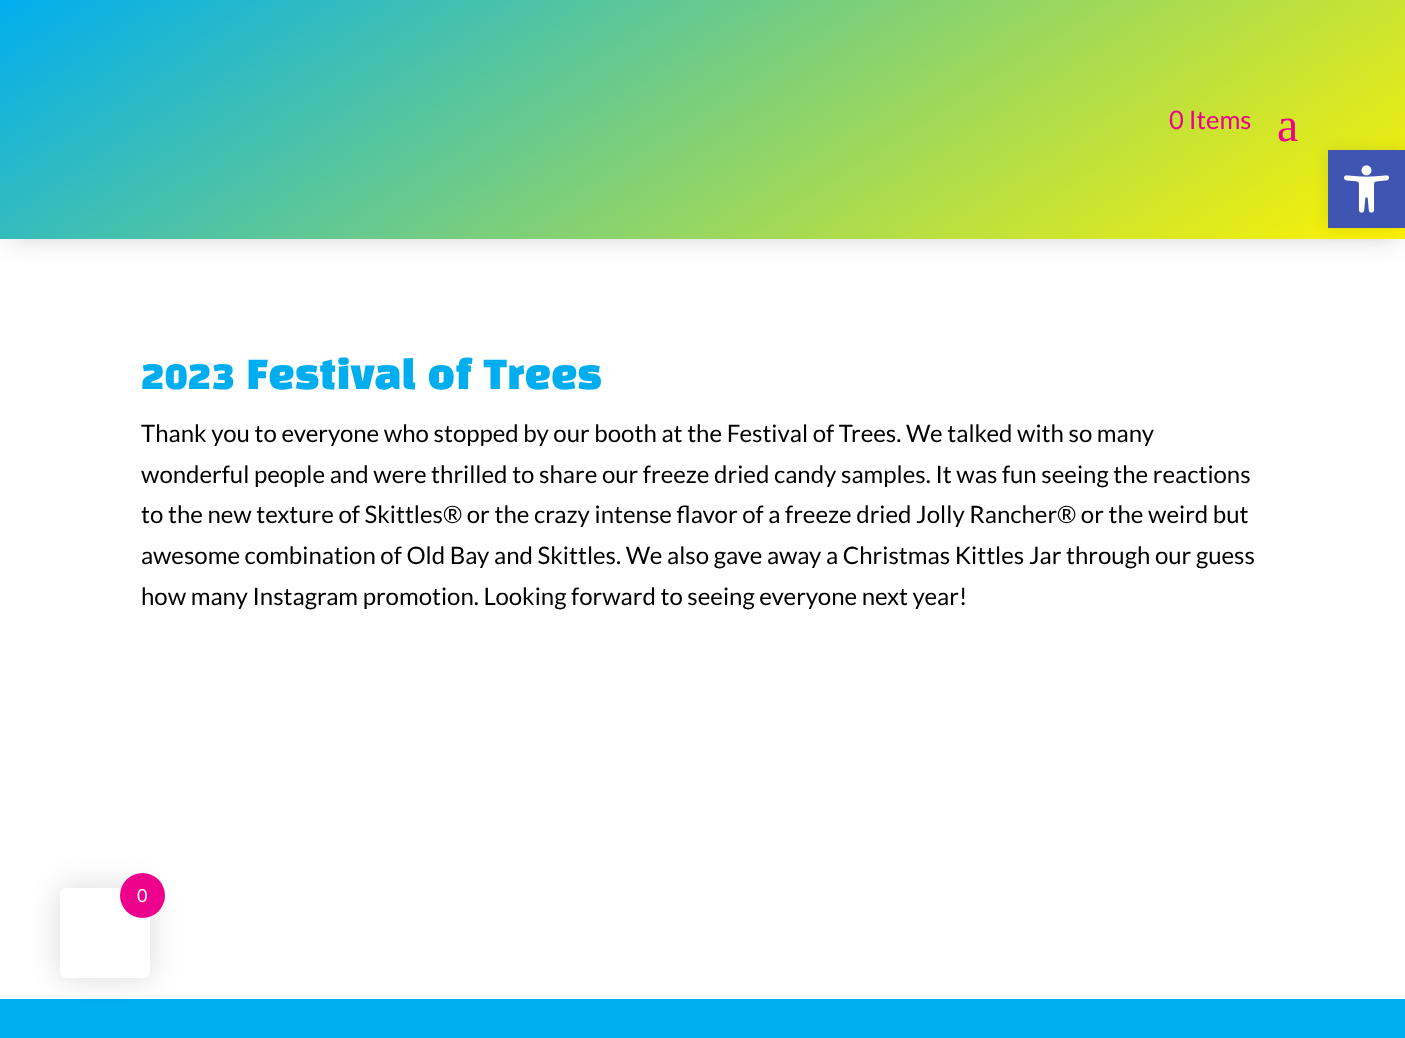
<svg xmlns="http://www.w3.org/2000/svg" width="1405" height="1038">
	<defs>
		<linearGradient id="g1" gradientUnits="userSpaceOnUse" x1="440" y1="-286" x2="966" y2="524"><stop offset="0" stop-color="#00AEEF" /><stop offset="1" stop-color="#FFF200" /></linearGradient>
	</defs>
	<rect width="100%" height="100%" fill="#FFFFFF" />
	<rect x="9" y="17" width="1388" height="220" fill="#000000" fill-opacity="0.2" filter="blur(13.5px)" />
	<rect x="0" y="0" width="1405" height="239" fill="url(#g1)" />
	<text x="1169" y="129" font-family="Lato" font-size="25.5" fill="#EC008C">0 Items</text>
	<text x="1277" y="141" font-family="Liberation Serif" font-size="48" fill="#EC008C">a</text>
	<text x="141" y="389" font-family="Black Han Sans" font-size="39" font-weight="900" fill="#00AEEF">2023 Festival of Trees</text>
	<g font-family="Lato" font-size="24" fill="#000000">
		<text x="141" y="442">Thank you to everyone who stopped by our booth at the Festival of Trees. We talked with so many</text>
		<text x="141" y="483">wonderful people and were thrilled to share our freeze dried candy samples. It was fun seeing the reactions</text>
		<text x="141" y="523">to the new texture of Skittles® or the crazy intense flavor of a freeze dried Jolly Rancher® or the weird but</text>
		<text x="141" y="564">awesome combination of Old Bay and Skittles. We also gave away a Christmas Kittles Jar through our guess</text>
		<text x="141" y="605">how many Instagram promotion. Looking forward to seeing everyone next year!</text>
	</g>
	<rect x="0" y="999" width="1405" height="39" fill="#00AEEF" />
	<rect x="1328" y="150" width="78" height="78" fill="#000000" fill-opacity="0.1" filter="blur(7.5px)" />
	<rect x="1328" y="150" width="77" height="78" fill="#4054B2" />
	<image x="1344" y="165" width="46" height="48" href="assets/img1.png" />
	<rect x="60" y="888" width="90" height="90" rx="6" fill="#000000" fill-opacity="0.15" filter="blur(15px)" />
	<rect x="60" y="888" width="90" height="90" rx="6" fill="#FFFFFF" />
	<circle cx="142.5" cy="895.5" r="22.5" fill="#EC008C" />
	<text x="137" y="902" font-family="Lato" font-size="18" fill="#FFFFFF">0</text>
</svg>
